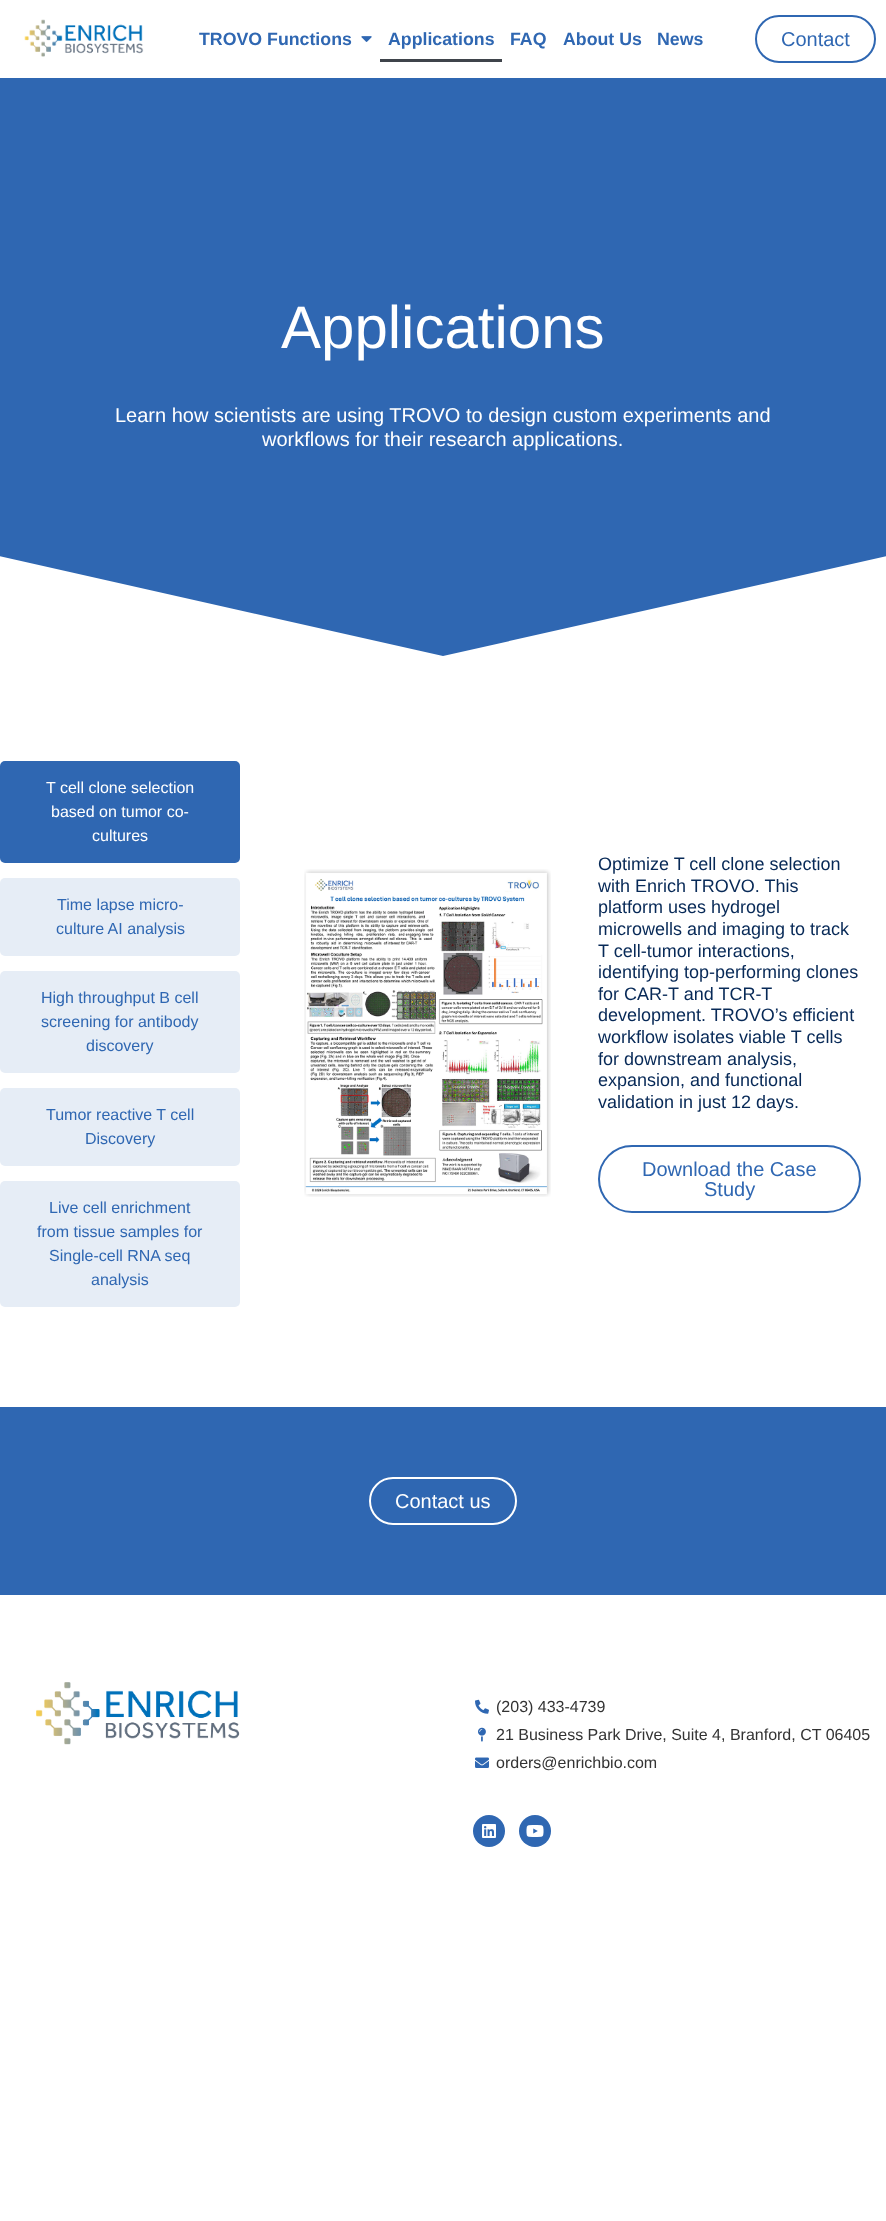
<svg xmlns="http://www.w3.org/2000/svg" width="886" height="2221">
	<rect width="100%" height="100%" fill="#FFFFFF" />
	<image x="24" y="19" width="120" height="38" href="assets/img1.png" />
	<text x="199" y="45" font-family="Liberation Sans" font-size="17.75" font-weight="700" fill="#2F67B2">TROVO Functions</text>
	<image x="361" y="36" width="11" height="6" href="assets/img2.png" />
	<text x="388" y="45" font-family="Liberation Sans" font-size="17.75" font-weight="700" fill="#2F67B2">Applications</text>
	<rect x="380" y="59" width="122" height="3" fill="#3F444B" />
	<g font-family="Liberation Sans" font-size="17.75" font-weight="700" fill="#2F67B2">
		<text x="510" y="45">FAQ</text>
		<text x="563" y="45">About Us</text>
		<text x="657" y="45">News</text>
	</g>
	<rect x="756" y="16" width="119" height="46" rx="23" fill="none" stroke="#2F67B2" stroke-width="2" />
	<text x="781" y="46" font-family="Liberation Sans" font-size="20" fill="#2F67B2">Contact</text>
	<rect x="0" y="78" width="886" height="578" fill="#2F67B2" />
	<text x="281" y="348" font-family="Liberation Sans" font-size="60" fill="#FFFFFF">Applications</text>
	<g font-family="Liberation Sans" font-size="20" fill="#FFFFFF">
		<text x="115" y="422">Learn how scientists are using TROVO to design custom experiments and</text>
		<text x="262" y="446">workflows for their research applications.</text>
	</g>
	<path d="M443 656L-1 556V662H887V556Z" fill="#FFFFFF" />
	<rect x="0" y="761" width="240" height="102" rx="5" fill="#2F67B2" />
	<g font-family="Liberation Sans" font-size="16" fill="#FFFFFF">
		<text x="46" y="793">T cell clone selection</text>
		<text x="51" y="817">based on tumor co-</text>
		<text x="92" y="841">cultures</text>
	</g>
	<rect x="0" y="878" width="240" height="78" rx="5" fill="#E6EDF6" />
	<g font-family="Liberation Sans" font-size="16" fill="#2F67B2">
		<text x="57" y="910">Time lapse micro-</text>
		<text x="56" y="934">culture AI analysis</text>
	</g>
	<rect x="0" y="971" width="240" height="102" rx="5" fill="#E6EDF6" />
	<g font-family="Liberation Sans" font-size="16" fill="#2F67B2">
		<text x="41" y="1003">High throughput B cell</text>
		<text x="41" y="1027">screening for antibody</text>
		<text x="86" y="1051">discovery</text>
	</g>
	<rect x="0" y="1088" width="240" height="78" rx="5" fill="#E6EDF6" />
	<g font-family="Liberation Sans" font-size="16" fill="#2F67B2">
		<text x="46" y="1120">Tumor reactive T cell</text>
		<text x="85" y="1144">Discovery</text>
	</g>
	<rect x="0" y="1181" width="240" height="126" rx="5" fill="#E6EDF6" />
	<g font-family="Liberation Sans" font-size="16" fill="#2F67B2">
		<text x="49" y="1213">Live cell enrichment</text>
		<text x="37" y="1237">from tissue samples for</text>
		<text x="49" y="1261">Single-cell RNA seq</text>
		<text x="91" y="1285">analysis</text>
	</g>
	<image x="304" y="869" width="247" height="328" href="assets/img3.png" />
	<g font-family="Liberation Sans" font-size="18" fill="#072957">
		<text x="598" y="870">Optimize T cell clone selection</text>
		<text x="598" y="892">with Enrich TROVO. This</text>
		<text x="598" y="913">platform uses hydrogel</text>
		<text x="598" y="935">microwells and imaging to track</text>
		<text x="598" y="957">T cell-tumor interactions,</text>
		<text x="598" y="978">identifying top-performing clones</text>
		<text x="598" y="1000">for CAR-T and TCR-T</text>
		<text x="598" y="1021">development. TROVO’s efficient</text>
		<text x="598" y="1043">workflow isolates viable T cells</text>
		<text x="598" y="1065">for downstream analysis,</text>
		<text x="598" y="1086">expansion, and functional</text>
		<text x="598" y="1108">validation in just 12 days.</text>
	</g>
	<rect x="599" y="1146" width="261" height="66" rx="33" fill="none" stroke="#2F67B2" stroke-width="2" />
	<g font-family="Liberation Sans" font-size="20" fill="#2F67B2">
		<text x="642" y="1176">Download the Case</text>
		<text x="704" y="1196">Study</text>
	</g>
	<rect x="0" y="1407" width="886" height="188" fill="#2F67B2" />
	<rect x="370" y="1478" width="146" height="46" rx="23" fill="none" stroke="#FFFFFF" stroke-width="2" />
	<text x="395" y="1508" font-family="Liberation Sans" font-size="20" fill="#FFFFFF">Contact us</text>
	<image x="36" y="1682" width="204" height="63" href="assets/img4.png" />
	<image x="475" y="1699" width="14" height="15" href="assets/img5.png" />
	<text x="496" y="1712" font-family="Liberation Sans" font-size="16" fill="#333333">(203) 433-4739</text>
	<image x="478" y="1727" width="8" height="15" href="assets/img6.png" />
	<text x="496" y="1740" font-family="Liberation Sans" font-size="16" fill="#333333">21 Business Park Drive, Suite 4, Branford, CT 06405</text>
	<image x="475" y="1757" width="14" height="11" href="assets/img7.png" />
	<text x="496" y="1768" font-family="Liberation Sans" font-size="16" fill="#333333">orders@enrichbio.com</text>
	<circle cx="489" cy="1831" r="16" fill="#2F67B2" />
	<image x="482" y="1824" width="14" height="14" href="assets/img8.png" />
	<circle cx="535" cy="1831" r="16" fill="#2F67B2" />
	<image x="526" y="1825" width="18" height="12" href="assets/img9.png" />
</svg>
